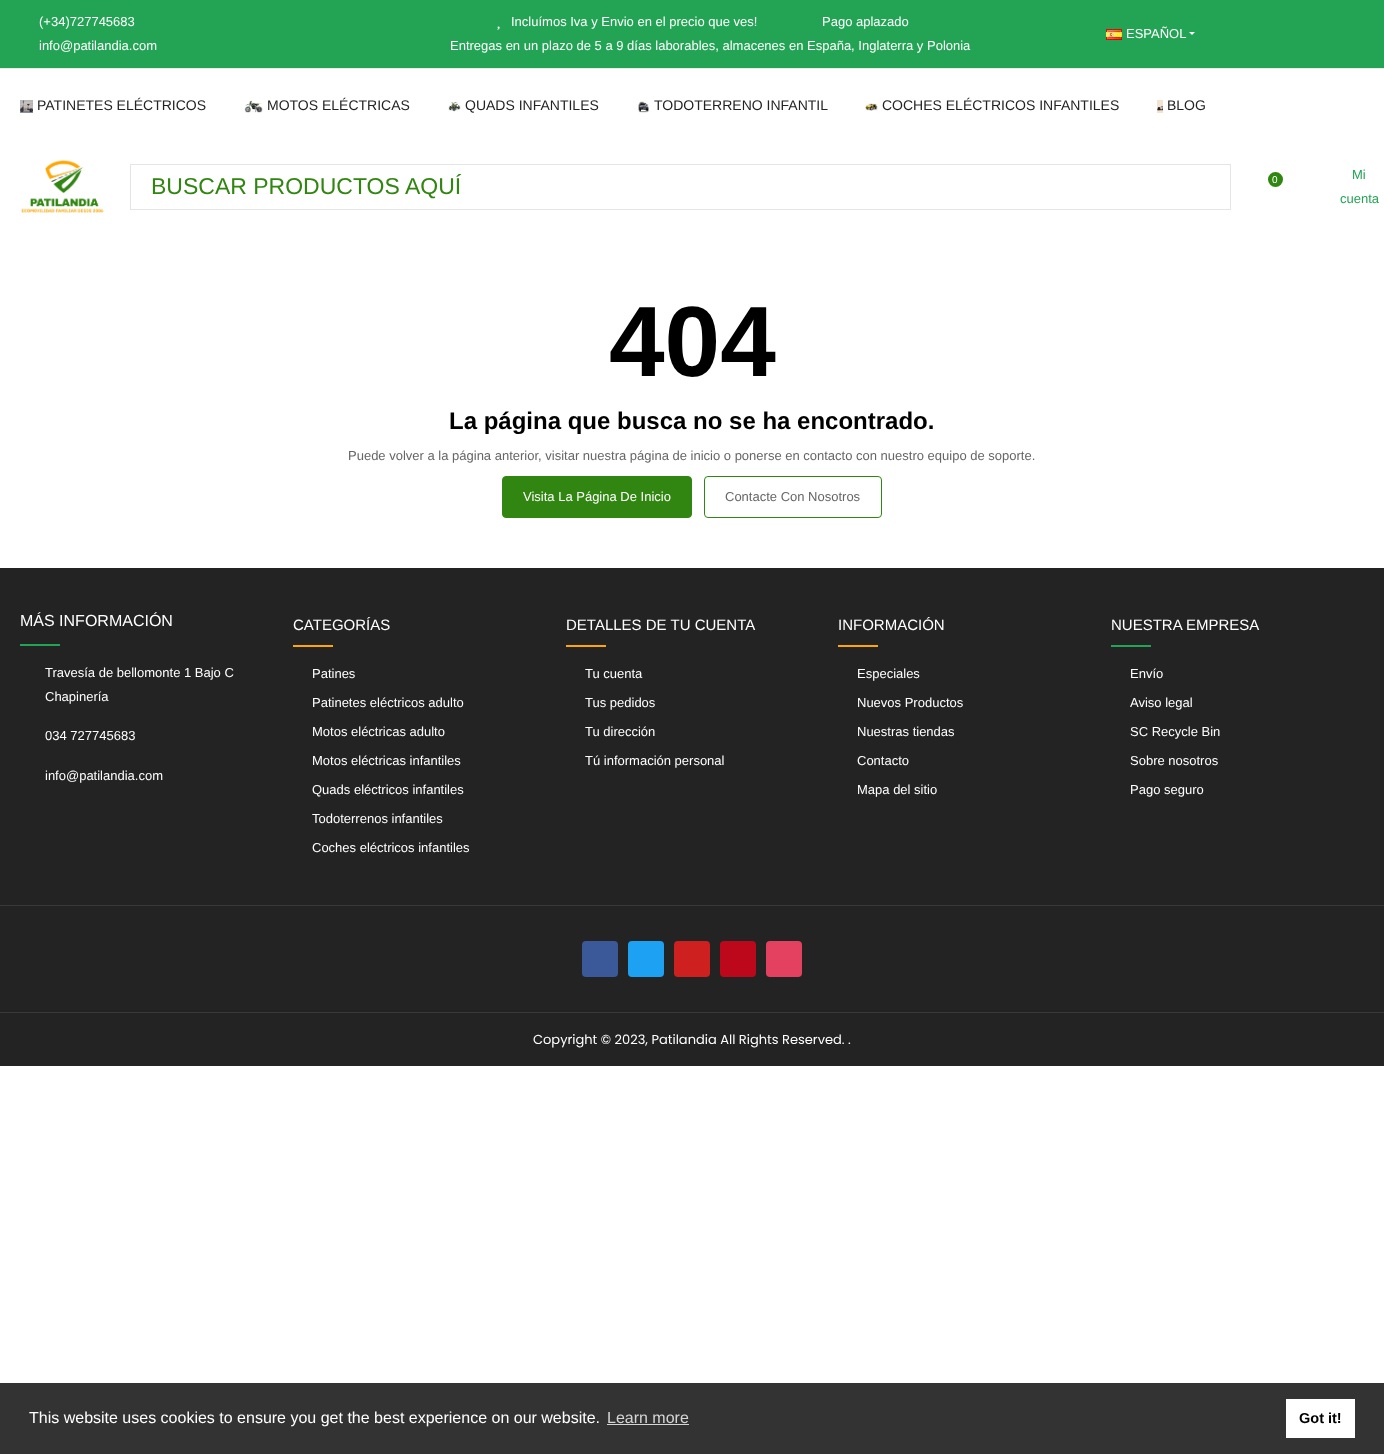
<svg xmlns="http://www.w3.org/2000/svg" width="1384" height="1454">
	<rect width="100%" height="100%" fill="#FFFFFF" />
	<rect x="0" y="0" width="1384" height="68" fill="#23A455" />
	<rect x="0" y="68" width="1384" height="1" fill="#EBEBEB" />
	<g font-family="Liberation Sans" font-size="13" fill="#FFFFFF">
		<text x="39" y="26">(+34)727745683</text>
		<text x="39" y="50">info@patilandia.com</text>
	</g>
	<image x="497" y="26" width="3" height="4" href="assets/img1.png" />
	<g font-family="Liberation Sans" font-size="13" fill="#FFFFFF">
		<text x="511" y="26">Incluímos Iva y Envio en el precio que ves!</text>
		<text x="822" y="26">Pago aplazado</text>
		<text x="450" y="50">Entregas en un plazo de 5 a 9 días laborables, almacenes en España, Inglaterra y Polonia</text>
	</g>
	<image x="1106" y="29" width="16" height="11" href="assets/img2.png" />
	<text x="1126" y="38" font-family="Liberation Sans" font-size="13" fill="#FFFFFF">ESPAÑOL</text>
	<path d="M1189 32H1195L1192 35Z" fill="#FFFFFF" />
	<image x="20" y="100" width="13" height="13" href="assets/img3.png" />
	<text x="37" y="110" font-family="Liberation Sans" font-size="14" fill="#232323">PATINETES ELÉCTRICOS</text>
	<image x="244" y="100" width="19" height="13" href="assets/img4.png" />
	<text x="267" y="110" font-family="Liberation Sans" font-size="14" fill="#232323">MOTOS ELÉCTRICAS</text>
	<image x="448" y="102" width="13" height="10" href="assets/img5.png" />
	<text x="465" y="110" font-family="Liberation Sans" font-size="14" fill="#232323">QUADS INFANTILES</text>
	<image x="638" y="101" width="11" height="12" href="assets/img6.png" />
	<text x="654" y="110" font-family="Liberation Sans" font-size="14" fill="#232323">TODOTERRENO INFANTIL</text>
	<image x="865" y="103" width="13" height="8" href="assets/img7.png" />
	<text x="882" y="110" font-family="Liberation Sans" font-size="14" fill="#232323">COCHES ELÉCTRICOS INFANTILES</text>
	<image x="1157" y="100" width="6" height="13" href="assets/img8.png" />
	<text x="1167" y="110" font-family="Liberation Sans" font-size="14" fill="#232323">BLOG</text>
	<image x="21" y="160" width="83" height="53" href="assets/img9.png" />
	<rect x="130.5" y="164.5" width="1100" height="45" fill="none" stroke="#E5E5E5" />
	<text x="151" y="194" font-family="Liberation Sans" font-size="23" fill="#318611">BUSCAR PRODUCTOS AQUÍ</text>
	<circle cx="1275.5" cy="179.5" r="7.5" fill="#318611" />
	<text x="1272" y="183" font-family="Liberation Sans" font-size="10" fill="#FFFFFF">0</text>
	<g font-family="Liberation Sans" font-size="13" fill="#23A455">
		<text x="1352" y="179">Mi</text>
		<text x="1340" y="203">cuenta</text>
	</g>
	<text x="609" y="376" font-family="Liberation Sans" font-size="100" font-weight="700" fill="#000000">404</text>
	<text x="449" y="429" font-family="Liberation Sans" font-size="24" font-weight="700" fill="#000000">La página que busca no se ha encontrado.</text>
	<text x="348" y="460" font-family="Liberation Sans" font-size="13" fill="#666666">Puede volver a la página anterior, visitar nuestra página de inicio o ponerse en contacto con nuestro equipo de soporte.</text>
	<rect x="502.5" y="476.5" width="189" height="41" rx="3.5" fill="#318611" stroke="#318611" />
	<text x="523" y="501" font-family="Liberation Sans" font-size="13" fill="#FFFFFF">Visita La Página De Inicio</text>
	<rect x="704.5" y="476.5" width="177" height="41" rx="3.5" fill="none" stroke="#318611" />
	<text x="725" y="501" font-family="Liberation Sans" font-size="13" fill="#666666">Contacte Con Nosotros</text>
	<rect x="0" y="568" width="1384" height="337" fill="#232323" />
	<rect x="0" y="905" width="1384" height="1" fill="#393939" />
	<text x="20" y="626" font-family="Liberation Sans" font-size="16" fill="#FFFFFF">MÁS INFORMACIÓN</text>
	<rect x="20" y="644" width="40" height="2" fill="#23A455" />
	<g font-family="Liberation Sans" font-size="13" fill="#FFFFFF">
		<text x="45" y="677">Travesía de bellomonte 1 Bajo C</text>
		<text x="45" y="701">Chapinería</text>
		<text x="45" y="740">034 727745683</text>
		<text x="45" y="780">info@patilandia.com</text>
	</g>
	<text x="293" y="630" font-family="Liberation Sans" font-size="15" fill="#FFFFFF">CATEGORÍAS</text>
	<rect x="293" y="645" width="40" height="2" fill="#FEA700" />
	<g font-family="Liberation Sans" font-size="13" fill="#FFFFFF">
		<text x="312" y="678">Patines</text>
		<text x="312" y="707">Patinetes eléctricos adulto</text>
		<text x="312" y="736">Motos eléctricas adulto</text>
		<text x="312" y="765">Motos eléctricas infantiles</text>
		<text x="312" y="794">Quads eléctricos infantiles</text>
		<text x="312" y="823">Todoterrenos infantiles</text>
		<text x="312" y="852">Coches eléctricos infantiles</text>
	</g>
	<text x="566" y="630" font-family="Liberation Sans" font-size="15" fill="#FFFFFF">DETALLES DE TU CUENTA</text>
	<rect x="566" y="645" width="40" height="2" fill="#FEA700" />
	<g font-family="Liberation Sans" font-size="13" fill="#FFFFFF">
		<text x="585" y="678">Tu cuenta</text>
		<text x="585" y="707">Tus pedidos</text>
		<text x="585" y="736">Tu dirección</text>
		<text x="585" y="765">Tú información personal</text>
	</g>
	<text x="838" y="630" font-family="Liberation Sans" font-size="15" fill="#FFFFFF">INFORMACIÓN</text>
	<rect x="838" y="645" width="40" height="2" fill="#FEA700" />
	<g font-family="Liberation Sans" font-size="13" fill="#FFFFFF">
		<text x="857" y="678">Especiales</text>
		<text x="857" y="707">Nuevos Productos</text>
		<text x="857" y="736">Nuestras tiendas</text>
		<text x="857" y="765">Contacto</text>
		<text x="857" y="794">Mapa del sitio</text>
	</g>
	<text x="1111" y="630" font-family="Liberation Sans" font-size="15" fill="#FFFFFF">NUESTRA EMPRESA</text>
	<rect x="1111" y="645" width="40" height="2" fill="#23A455" />
	<g font-family="Liberation Sans" font-size="13" fill="#FFFFFF">
		<text x="1130" y="678">Envío</text>
		<text x="1130" y="707">Aviso legal</text>
		<text x="1130" y="736">SC Recycle Bin</text>
		<text x="1130" y="765">Sobre nosotros</text>
		<text x="1130" y="794">Pago seguro</text>
	</g>
	<rect x="0" y="906" width="1384" height="106" fill="#232323" />
	<rect x="0" y="1012" width="1384" height="1" fill="#393939" />
	<rect x="582" y="941" width="36" height="36" rx="4" fill="#3B5998" />
	<rect x="628" y="941" width="36" height="36" rx="4" fill="#1DA1F2" />
	<rect x="674" y="941" width="36" height="36" rx="4" fill="#CD201F" />
	<rect x="720" y="941" width="36" height="36" rx="4" fill="#BD081C" />
	<rect x="766" y="941" width="36" height="36" rx="4" fill="#E4405F" />
	<rect x="0" y="1013" width="1384" height="53" fill="#232323" />
	<text x="533" y="1044" font-family="Poppins" font-size="13" fill="#FFFFFF">Copyright © 2023, Patilandia All Rights Reserved. .</text>
	<rect x="0" y="1383" width="1384" height="71" fill="#333333" />
	<text x="29" y="1423" font-family="Liberation Sans" font-size="16" fill="#FFFFFF">This website uses cookies to ensure you get the best experience on our website.</text>
	<text x="607" y="1423" font-family="Liberation Sans" font-size="16" fill="#D6D6D6">Learn more</text>
	<rect x="607" y="1424" width="82" height="1" fill="#D6D6D6" />
	<rect x="1286" y="1399" width="69" height="39" fill="#FFFFFF" />
	<text x="1299" y="1423" font-family="Liberation Sans" font-size="14.5" font-weight="700" fill="#000000">Got it!</text>
</svg>
